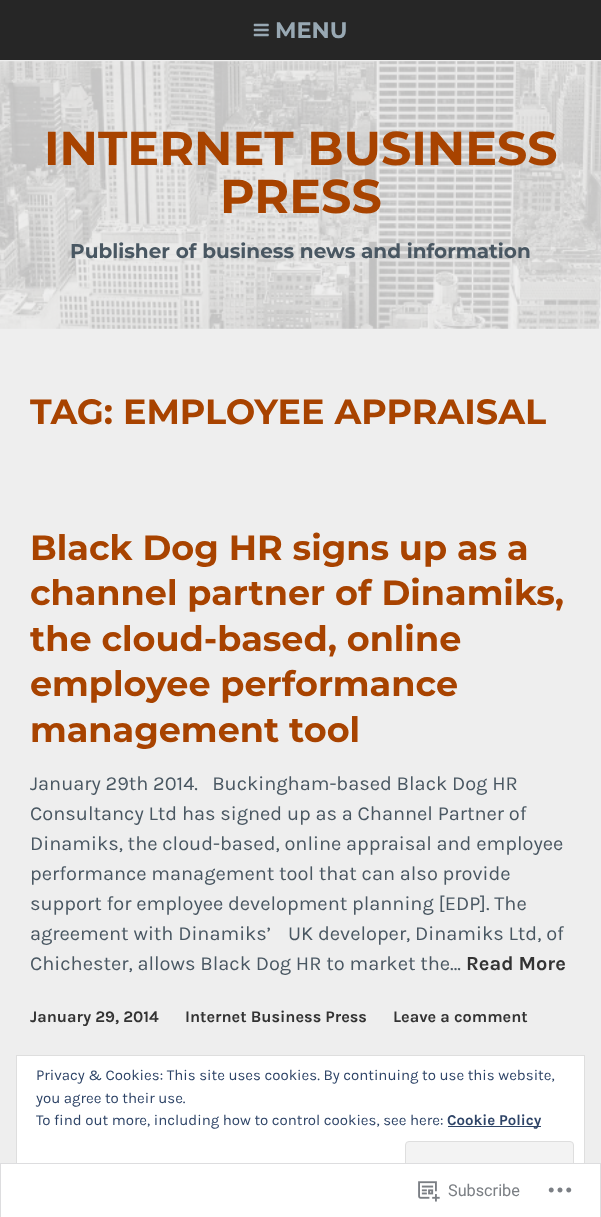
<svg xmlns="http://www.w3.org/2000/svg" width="601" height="1217">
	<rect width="100%" height="100%" fill="#EEEEEE" />
	<rect x="0" y="0" width="601" height="60" fill="#262626" />
	<image x="253" y="23" width="16" height="14" href="assets/img1.png" />
	<text x="275" y="38" font-family="Montserrat" font-size="22.5" font-weight="700" fill="#98A8B3">MENU</text>
	<image x="0" y="61" width="601" height="268" href="assets/img2.png" />
	<g font-family="Montserrat" font-size="47.5" font-weight="700" fill="#A84300">
		<text x="44" y="165">INTERNET BUSINESS</text>
		<text x="220" y="213">PRESS</text>
	</g>
	<text x="70" y="258" font-family="Montserrat" font-size="20" font-weight="700" fill="#495762">Publisher of business news and information</text>
	<g font-family="Montserrat" font-size="35" font-weight="700" fill="#A84300">
		<text x="30" y="424">TAG: EMPLOYEE APPRAISAL</text>
		<text x="30" y="560">Black Dog HR signs up as a</text>
		<text x="30" y="605">channel partner of Dinamiks,</text>
		<text x="30" y="651">the cloud-based, online</text>
		<text x="30" y="696">employee performance</text>
		<text x="30" y="742">management tool</text>
	</g>
	<g font-family="Karla" font-size="20" fill="#495762">
		<text x="30" y="790" xml:space="preserve">January 29th 2014.   Buckingham-based Black Dog HR</text>
		<text x="30" y="820">Consultancy Ltd has signed up as a Channel Partner of</text>
		<text x="30" y="850">Dinamiks, the cloud-based, online appraisal and employee</text>
		<text x="30" y="880">performance management tool that can also provide</text>
		<text x="30" y="910">support for employee development planning [EDP]. The</text>
		<text x="30" y="940">agreement with Dinamiks’</text>
		<text x="288" y="940">UK developer, Dinamiks Ltd, of</text>
		<text x="30" y="970">Chichester, allows Black Dog HR to market the…</text>
	</g>
	<text x="466" y="970" font-family="Karla" font-size="20" font-weight="700" fill="#333333">Read More</text>
	<g font-family="Karla" font-size="16.25" font-weight="700" fill="#333333">
		<text x="30" y="1022">January 29, 2014</text>
		<text x="185" y="1022">Internet Business Press</text>
		<text x="393" y="1022">Leave a comment</text>
	</g>
	<rect x="16.5" y="1055.5" width="568" height="145" fill="#FFFFFF" stroke="#DEDEDE" />
	<g font-family="Karla" font-size="15" fill="#2E4467">
		<text x="36" y="1080">Privacy &amp; Cookies: This site uses cookies. By continuing to use this website,</text>
		<text x="36" y="1103">you agree to their use.</text>
		<text x="36" y="1125">To find out more, including how to control cookies, see here:</text>
	</g>
	<rect x="448" y="1126" width="93" height="1" fill="#2E4467" />
	<text x="447" y="1125" font-family="Karla" font-size="15" font-weight="700" fill="#2E4467">Cookie Policy</text>
	<rect x="405.5" y="1141.5" width="168" height="48" rx="3.5" fill="#F3F3F3" stroke="#DEDEDE" />
	<rect x="0" y="1163" width="601" height="54" fill="#FFFFFF" fill-opacity="0.98" />
	<rect x="0.5" y="1163.5" width="600" height="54" fill="none" stroke="#DCDCDE" stroke-opacity="0.98" />
	<image x="418" y="1181" width="22" height="21" href="assets/img3.png" />
	<text x="448" y="1196" font-family="Roboto" font-size="16.25" fill="#7B7F84">Subscribe</text>
	<image x="548" y="1187" width="24" height="6" href="assets/img4.png" />
</svg>
